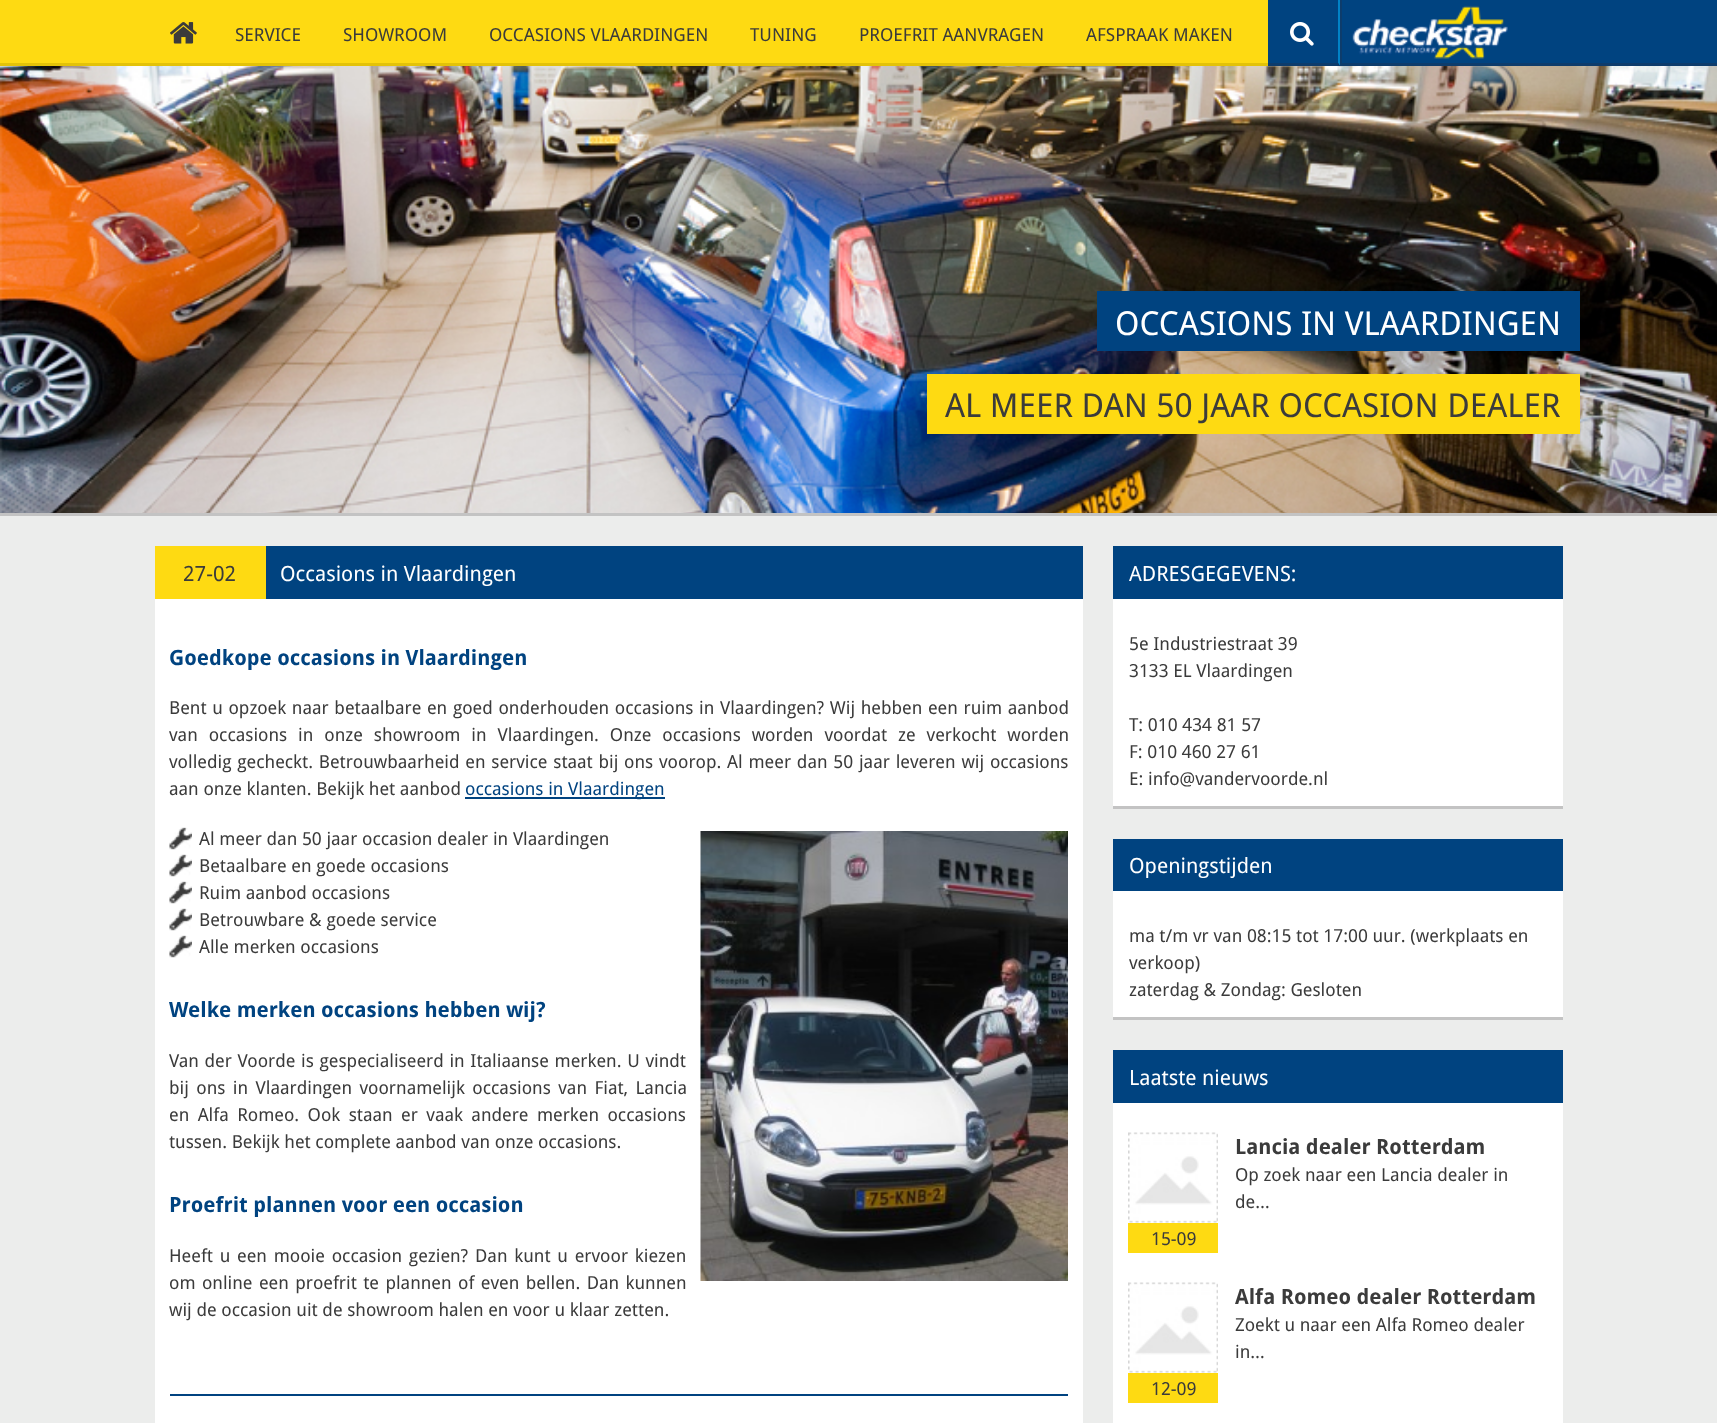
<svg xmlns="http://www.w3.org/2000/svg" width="1717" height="1423">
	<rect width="100%" height="100%" fill="#ECEDEC" />
	<rect x="0" y="0" width="1268" height="63" fill="#FEDA12" />
	<rect x="0" y="63" width="1268" height="3" fill="#E3C208" />
	<rect x="1268" y="0" width="449" height="63" fill="#004380" />
	<rect x="1338" y="63" width="379" height="3" fill="#0D3C6C" />
	<image x="170" y="22" width="27" height="22" href="assets/img1.png" />
	<g font-family="Droid Sans" font-size="18" fill="#3B3B3B">
		<text x="235" y="41">SERVICE</text>
		<text x="343" y="41">SHOWROOM</text>
		<text x="489" y="41">OCCASIONS VLAARDINGEN</text>
		<text x="750" y="41">TUNING</text>
		<text x="859" y="41">PROEFRIT AANVRAGEN</text>
		<text x="1086" y="41">AFSPRAAK MAKEN</text>
	</g>
	<path d="M1340 0V66L1338 63V0Z" fill="#0182C6" />
	<path d="M1340 66H1268V63H1338Z" fill="#0D3C6C" />
	<image x="1290" y="22" width="24" height="24" href="assets/img2.png" />
	<rect x="1340" y="0" width="2" height="66" fill="#0D3C6C" />
	<image x="1352" y="5" width="156" height="54" href="assets/img3.png" />
	<image x="0" y="66" width="1717" height="447" href="assets/img4.png" />
	<rect x="0" y="513" width="1717" height="3" fill="#C3C3C3" />
	<rect x="1097" y="291" width="483" height="60" fill="#004380" />
	<text x="1115" y="335" font-family="Droid Sans" font-size="33" fill="#FFFFFF">OCCASIONS IN VLAARDINGEN</text>
	<rect x="927" y="374" width="653" height="60" fill="#FEDA12" />
	<text x="945" y="417" font-family="Droid Sans" font-size="33" fill="#3B3B3B">AL MEER DAN 50 JAAR OCCASION DEALER</text>
	<rect x="266" y="546" width="817" height="53" fill="#004380" />
	<rect x="155" y="546" width="111" height="53" fill="#FEDA12" />
	<text x="183" y="581" font-family="Droid Sans" font-size="21" fill="#3B3B3B">27-02</text>
	<text x="280" y="581" font-family="Droid Sans" font-size="21" fill="#FFFFFF">Occasions in Vlaardingen</text>
	<rect x="155" y="599" width="928" height="824" fill="#FFFFFF" />
	<text x="169" y="665" font-family="Droid Sans" font-size="21" font-weight="700" fill="#004380">Goedkope occasions in Vlaardingen</text>
	<g font-family="Droid Sans" font-size="18" fill="#3B3B3B">
		<text x="169" y="714" word-spacing="1">Bent u opzoek naar betaalbare en goed onderhouden occasions in Vlaardingen? Wij hebben een ruim aanbod</text>
		<text x="169" y="741" word-spacing="6.25">van occasions in onze showroom in Vlaardingen. Onze occasions worden voordat ze verkocht worden</text>
		<text x="169" y="768" word-spacing="1.1">volledig gecheckt. Betrouwbaarheid en service staat bij ons voorop. Al meer dan 50 jaar leveren wij occasions</text>
		<text x="169" y="795">aan onze klanten. Bekijk het aanbod</text>
	</g>
	<rect x="465" y="797" width="200" height="2" fill="#004380" />
	<text x="465" y="795" font-family="Droid Sans" font-size="18" fill="#004380">occasions in Vlaardingen</text>
	<image x="169" y="827" width="23" height="23" href="assets/img5.png" />
	<text x="199" y="845" font-family="Droid Sans" font-size="18" fill="#3B3B3B">Al meer dan 50 jaar occasion dealer in Vlaardingen</text>
	<image x="700" y="831" width="368" height="450" href="assets/img6.png" />
	<image x="169" y="854" width="23" height="23" href="assets/img5.png" />
	<text x="199" y="872" font-family="Droid Sans" font-size="18" fill="#3B3B3B">Betaalbare en goede occasions</text>
	<image x="169" y="881" width="23" height="23" href="assets/img5.png" />
	<text x="199" y="899" font-family="Droid Sans" font-size="18" fill="#3B3B3B">Ruim aanbod occasions</text>
	<image x="169" y="908" width="23" height="23" href="assets/img5.png" />
	<text x="199" y="926" font-family="Droid Sans" font-size="18" fill="#3B3B3B">Betrouwbare &amp; goede service</text>
	<image x="169" y="935" width="23" height="23" href="assets/img5.png" />
	<text x="199" y="953" font-family="Droid Sans" font-size="18" fill="#3B3B3B">Alle merken occasions</text>
	<text x="169" y="1017" font-family="Droid Sans" font-size="21" font-weight="700" fill="#004380">Welke merken occasions hebben wij?</text>
	<g font-family="Droid Sans" font-size="18" fill="#3B3B3B">
		<text x="169" y="1067" word-spacing="1">Van der Voorde is gespecialiseerd in Italiaanse merken. U vindt</text>
		<text x="169" y="1094" word-spacing="2.75">bij ons in Vlaardingen voornamelijk occasions van Fiat, Lancia</text>
		<text x="169" y="1121" word-spacing="3.75">en Alfa Romeo. Ook staan er vaak andere merken occasions</text>
		<text x="169" y="1148">tussen. Bekijk het complete aanbod van onze occasions.</text>
	</g>
	<text x="169" y="1212" font-family="Droid Sans" font-size="21" font-weight="700" fill="#004380">Proefrit plannen voor een occasion</text>
	<g font-family="Droid Sans" font-size="18" fill="#3B3B3B">
		<text x="169" y="1262" word-spacing="2.1">Heeft u een mooie occasion gezien? Dan kunt u ervoor kiezen</text>
		<text x="169" y="1289" word-spacing="1.75">om online een proefrit te plannen of even bellen. Dan kunnen</text>
		<text x="169" y="1316">wij de occasion uit de showroom halen en voor u klaar zetten.</text>
	</g>
	<rect x="170" y="1394" width="898" height="2" fill="#004380" />
	<rect x="1113" y="546" width="450" height="53" fill="#004380" />
	<text x="1129" y="581" font-family="Droid Sans" font-size="21" fill="#FFFFFF">ADRESGEGEVENS:</text>
	<rect x="1113" y="599" width="450" height="207" fill="#FFFFFF" />
	<rect x="1113" y="806" width="450" height="3" fill="#C3C3C3" />
	<g font-family="Droid Sans" font-size="18" fill="#3B3B3B">
		<text x="1129" y="650">5e Industriestraat 39</text>
		<text x="1129" y="677">3133 EL Vlaardingen</text>
		<text x="1129" y="731">T: 010 434 81 57</text>
		<text x="1129" y="758">F: 010 460 27 61</text>
		<text x="1129" y="785">E: info@vandervoorde.nl</text>
	</g>
	<rect x="1113" y="839" width="450" height="52" fill="#004380" />
	<text x="1129" y="873" font-family="Droid Sans" font-size="21" fill="#FFFFFF">Openingstijden</text>
	<rect x="1113" y="891" width="450" height="126" fill="#FFFFFF" />
	<rect x="1113" y="1017" width="450" height="3" fill="#C3C3C3" />
	<g font-family="Droid Sans" font-size="18" fill="#3B3B3B">
		<text x="1129" y="942">ma t/m vr van 08:15 tot 17:00 uur. (werkplaats en</text>
		<text x="1129" y="969">verkoop)</text>
		<text x="1129" y="996">zaterdag &amp; Zondag: Gesloten</text>
	</g>
	<rect x="1113" y="1050" width="450" height="53" fill="#004380" />
	<text x="1129" y="1085" font-family="Droid Sans" font-size="21" fill="#FFFFFF">Laatste nieuws</text>
	<rect x="1113" y="1103" width="450" height="320" fill="#FFFFFF" />
	<text x="1235" y="1154" font-family="Droid Sans" font-size="21" font-weight="700" fill="#3B3B3B">Lancia dealer Rotterdam</text>
	<g font-family="Droid Sans" font-size="18" fill="#3B3B3B">
		<text x="1235" y="1181">Op zoek naar een Lancia dealer in</text>
		<text x="1235" y="1208">de…</text>
	</g>
	<image x="1128" y="1132" width="90" height="91" href="assets/img7.png" />
	<rect x="1128" y="1223" width="90" height="30" fill="#FEDA12" />
	<text x="1151" y="1245" font-family="Droid Sans" font-size="18" fill="#3B3B3B">15-09</text>
	<text x="1235" y="1304" font-family="Droid Sans" font-size="21" font-weight="700" fill="#3B3B3B">Alfa Romeo dealer Rotterdam</text>
	<g font-family="Droid Sans" font-size="18" fill="#3B3B3B">
		<text x="1235" y="1331">Zoekt u naar een Alfa Romeo dealer</text>
		<text x="1235" y="1358">in…</text>
	</g>
	<image x="1128" y="1282" width="90" height="91" href="assets/img7.png" />
	<rect x="1128" y="1373" width="90" height="30" fill="#FEDA12" />
	<text x="1151" y="1395" font-family="Droid Sans" font-size="18" fill="#3B3B3B">12-09</text>
</svg>
